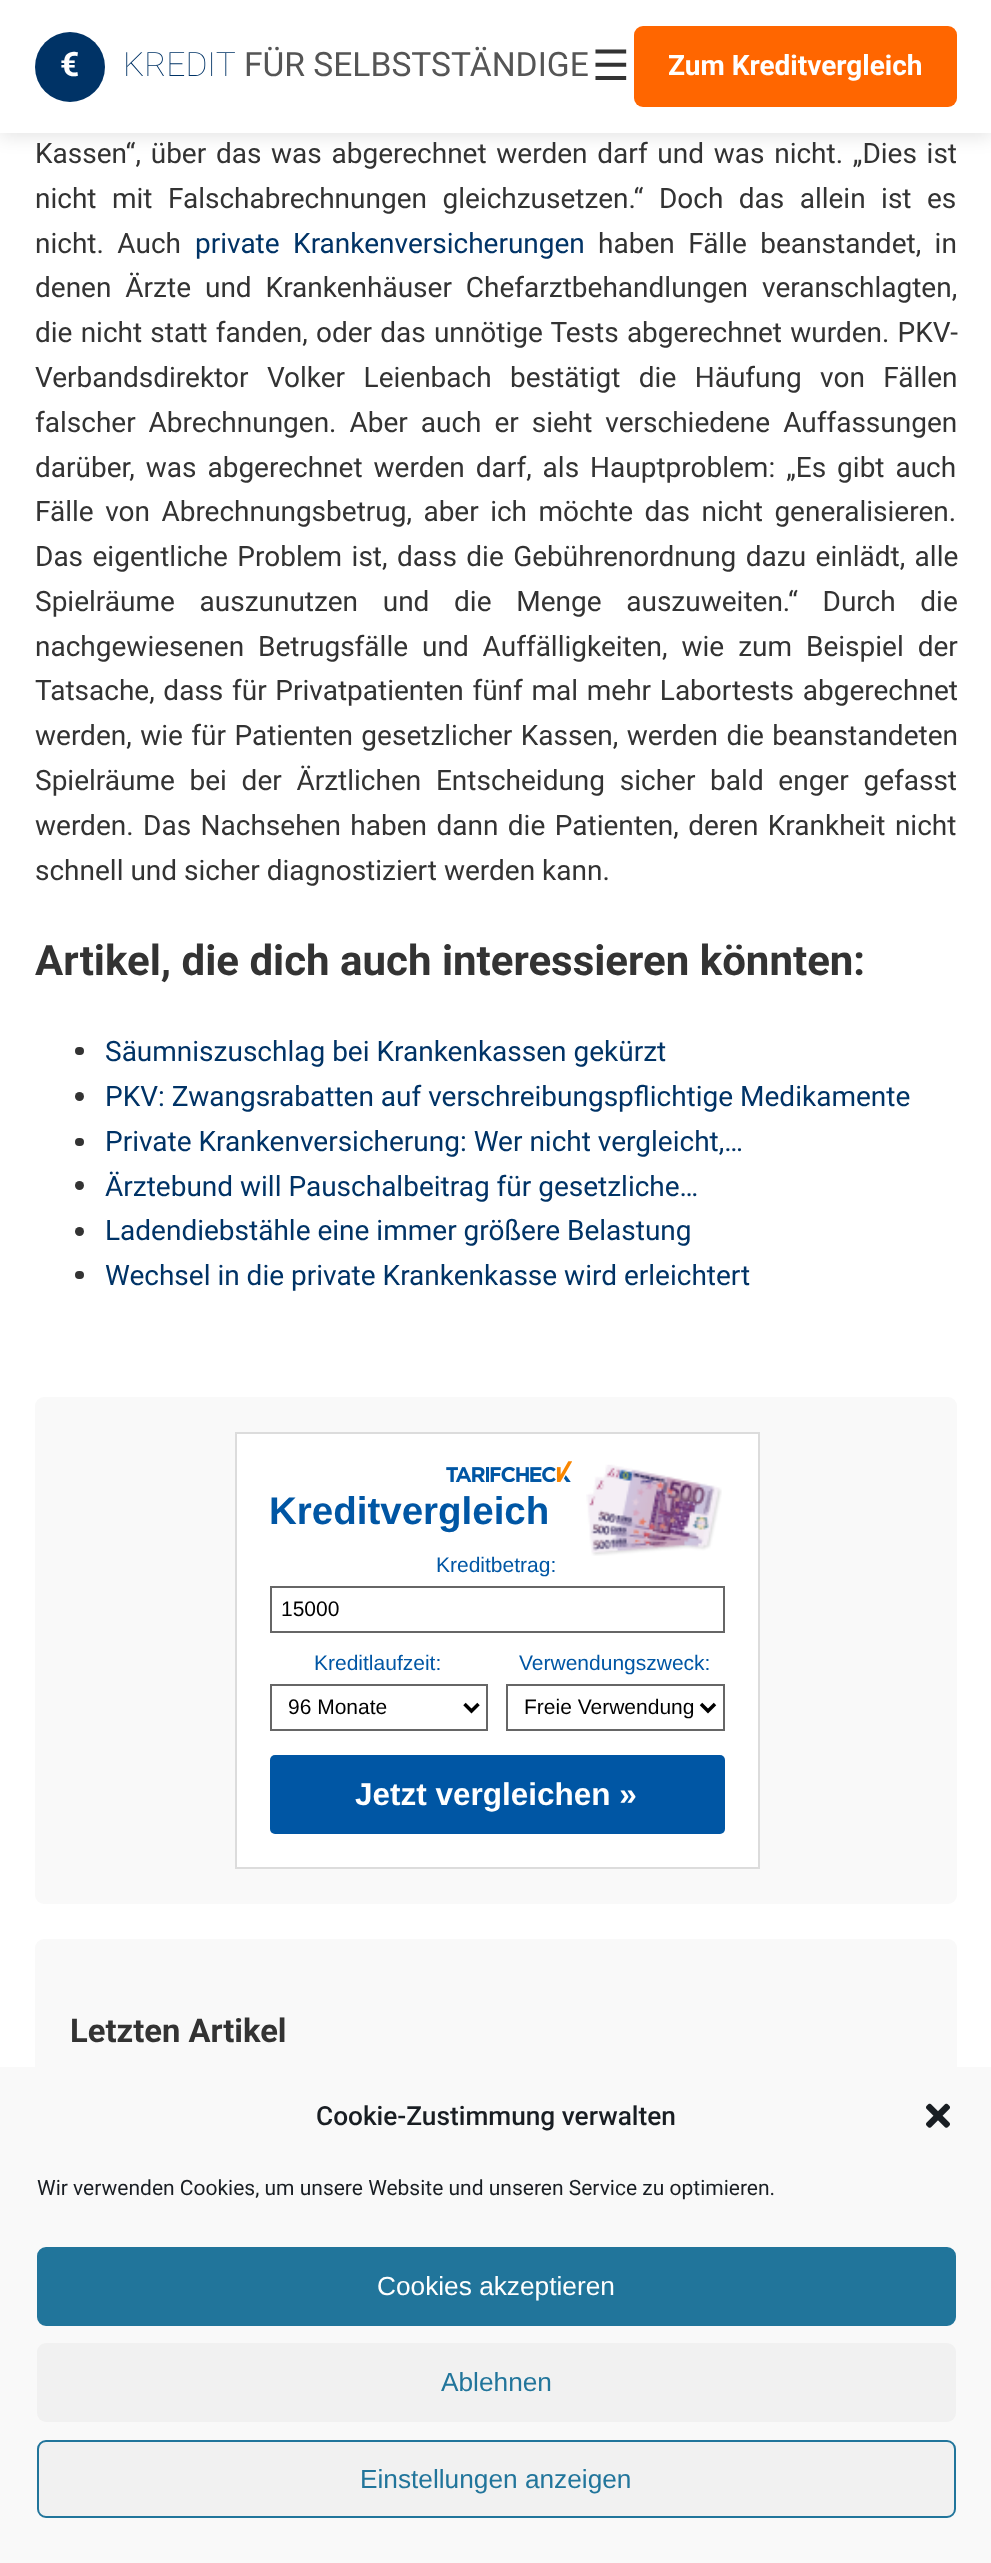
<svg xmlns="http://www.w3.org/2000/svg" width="991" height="2563">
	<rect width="100%" height="100%" fill="#FFFFFF" />
	<rect x="0" y="4" width="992" height="133" fill="#000000" fill-opacity="0.1" filter="blur(9px)" />
	<rect x="0" y="0" width="991" height="133" fill="#FFFFFF" />
	<circle cx="70" cy="67" r="35" fill="#003366" />
	<text x="60" y="76" font-family="Roboto" font-size="33.6" font-weight="700" fill="#FFFFFF">€</text>
	<text x="123" y="76" font-family="Roboto" font-size="33.6" font-weight="100" fill="#003366">KREDIT</text>
	<text x="244" y="76" font-family="Roboto" font-size="33.6" fill="#555555">FÜR SELBSTSTÄNDIGE</text>
	<text x="592" y="80" font-family="DejaVu Sans" font-size="42" fill="#333333">☰</text>
	<rect x="634" y="26" width="323" height="81" rx="9" fill="#FF6600" />
	<text x="668" y="75" font-family="Roboto" font-size="28" font-weight="700" fill="#FFFFFF">Zum Kreditvergleich</text>
	<g font-family="Roboto" font-size="28" fill="#333333">
		<text x="35" y="163" word-spacing="2.75">Kassen“, über das was abgerechnet werden darf und was nicht. „Dies ist</text>
		<text x="35" y="208" word-spacing="8.5">nicht mit Falschabrechnungen gleichzusetzen.“ Doch das allein ist es</text>
		<text x="35" y="253" word-spacing="6.5">nicht. Auch</text>
	</g>
	<text x="195" y="253" word-spacing="6.5" font-family="Roboto" font-size="28" fill="#003366">private Krankenversicherungen</text>
	<g font-family="Roboto" font-size="28" fill="#333333">
		<text x="598" y="253" word-spacing="6.5">haben Fälle beanstandet, in</text>
		<text x="35" y="297" word-spacing="7">denen Ärzte und Krankenhäuser Chefarztbehandlungen veranschlagten,</text>
		<text x="35" y="342" word-spacing="1.25">die nicht statt fanden, oder das unnötige Tests abgerechnet wurden. PKV-</text>
		<text x="35" y="387" word-spacing="11.5">Verbandsdirektor Volker Leienbach bestätigt die Häufung von Fällen</text>
		<text x="35" y="432" word-spacing="6">falscher Abrechnungen. Aber auch er sieht verschiedene Auffassungen</text>
		<text x="35" y="477" word-spacing="4">darüber, was abgerechnet werden darf, als Hauptproblem: „Es gibt auch</text>
		<text x="35" y="521" word-spacing="4.5">Fälle von Abrechnungsbetrug, aber ich möchte das nicht generalisieren.</text>
		<text x="35" y="566" word-spacing="2.5">Das eigentliche Problem ist, dass die Gebührenordnung dazu einlädt, alle</text>
		<text x="35" y="611" word-spacing="17.75">Spielräume auszunutzen und die Menge auszuweiten.“ Durch die</text>
		<text x="35" y="656" word-spacing="7">nachgewiesenen Betrugsfälle und Auffälligkeiten, wie zum Beispiel der</text>
		<text x="35" y="700" word-spacing="1.75">Tatsache, dass für Privatpatienten fünf mal mehr Labortests abgerechnet</text>
		<text x="35" y="745" word-spacing="1.5">werden, wie für Patienten gesetzlicher Kassen, werden die beanstandeten</text>
		<text x="35" y="790" word-spacing="7.75">Spielräume bei der Ärztlichen Entscheidung sicher bald enger gefasst</text>
		<text x="35" y="835" word-spacing="2.5">werden. Das Nachsehen haben dann die Patienten, deren Krankheit nicht</text>
		<text x="35" y="880">schnell und sicher diagnostiziert werden kann.</text>
	</g>
	<text x="35" y="975" font-family="Roboto" font-size="42" font-weight="700" fill="#333333">Artikel, die dich auch interessieren könnten:</text>
	<rect x="75" y="1047" width="9" height="8" rx="4" fill="#333333" />
	<text x="105" y="1061" font-family="Roboto" font-size="28" fill="#003366">Säumniszuschlag bei Krankenkassen gekürzt</text>
	<circle cx="79.5" cy="1096.5" r="4.5" fill="#333333" />
	<text x="105" y="1106" font-family="Roboto" font-size="28" fill="#003366">PKV: Zwangsrabatten auf verschreibungspflichtige Medikamente</text>
	<rect x="75" y="1138" width="9" height="8" rx="4" fill="#333333" />
	<text x="105" y="1151" font-family="Roboto" font-size="28" fill="#003366">Private Krankenversicherung: Wer nicht vergleicht,…</text>
	<circle cx="79.5" cy="1185.5" r="4.5" fill="#333333" />
	<text x="105" y="1196" font-family="Roboto" font-size="28" fill="#003366">Ärztebund will Pauschalbeitrag für gesetzliche…</text>
	<circle cx="79.5" cy="1231.5" r="4.5" fill="#333333" />
	<text x="105" y="1240" font-family="Roboto" font-size="28" fill="#003366">Ladendiebstähle eine immer größere Belastung</text>
	<rect x="75" y="1271" width="9" height="8" rx="4" fill="#333333" />
	<text x="105" y="1285" font-family="Roboto" font-size="28" fill="#003366">Wechsel in die private Krankenkasse wird erleichtert</text>
	<rect x="35" y="1397" width="922" height="507" rx="9" fill="#F9F9F9" />
	<rect x="237" y="1434" width="521" height="433" fill="#FFFFFF" />
	<image x="586" y="1464" width="136" height="92" href="assets/img1.png" />
	<rect x="236" y="1433" width="523" height="435" fill="none" stroke="#DCDCDC" stroke-width="2" />
	<image x="446" y="1461" width="126" height="21" href="assets/img2.png" />
	<text x="269" y="1524" font-family="Liberation Sans" font-size="38.5" font-weight="700" fill="#0056A4">Kreditvergleich</text>
	<text x="436" y="1572" font-family="Liberation Sans" font-size="21" fill="#0056A4">Kreditbetrag:</text>
	<rect x="271" y="1587" width="453" height="45" fill="none" stroke="#666666" stroke-width="2" />
	<text x="281" y="1616" font-family="Liberation Sans" font-size="21" fill="#000000">15000</text>
	<text x="314" y="1670" font-family="Liberation Sans" font-size="21" fill="#0056A4">Kreditlaufzeit:</text>
	<rect x="271" y="1685" width="216" height="45" fill="none" stroke="#666666" stroke-width="2" />
	<path d="M464.5 1704L471.5 1711L478.5 1704" fill="none" stroke="#000000" stroke-width="3.5" />
	<text x="288" y="1714" font-family="Liberation Sans" font-size="21" fill="#000000">96 Monate</text>
	<text x="519" y="1670" font-family="Liberation Sans" font-size="21" fill="#0056A4">Verwendungszweck:</text>
	<rect x="507" y="1685" width="217" height="45" fill="none" stroke="#666666" stroke-width="2" />
	<path d="M701 1704L708 1711L715 1704" fill="none" stroke="#000000" stroke-width="3.5" />
	<text x="524" y="1714" font-family="Liberation Sans" font-size="21" fill="#000000">Freie Verwendung</text>
	<rect x="270" y="1755" width="455" height="79" rx="5" fill="#0056A4" />
	<text x="355" y="1805" font-family="Liberation Sans" font-size="31.5" font-weight="700" fill="#FFFFFF">Jetzt vergleichen »</text>
	<rect x="35" y="1939" width="922" height="574" rx="9" fill="#F9F9F9" />
	<text x="70" y="2042" font-family="Roboto" font-size="32.75" font-weight="700" fill="#333333">Letzten Artikel</text>
	<rect x="0" y="2067" width="991" height="496" fill="#F9F9F9" />
	<text x="316" y="2125" font-family="Roboto" font-size="26.25" font-weight="500" fill="#191E23">Cookie-Zustimmung verwalten</text>
	<image x="926" y="2103" width="24" height="25" href="assets/img3.png" />
	<text x="37" y="2195" font-family="Roboto" font-size="21" fill="#191E23">Wir verwenden Cookies, um unsere Website und unseren Service zu optimieren.</text>
	<rect x="38" y="2248" width="917" height="77" rx="8" fill="#21759B" stroke="#21759B" stroke-width="2" />
	<text x="377" y="2295" font-family="Liberation Sans" font-size="26.25" fill="#FFFFFF">Cookies akzeptieren</text>
	<rect x="37" y="2343" width="919" height="79" rx="9" fill="#F1F1F1" />
	<text x="441" y="2391" font-family="Liberation Sans" font-size="26.25" fill="#21759B">Ablehnen</text>
	<rect x="38" y="2441" width="917" height="76" rx="8" fill="#F1F1F1" stroke="#21759B" stroke-width="2" />
	<text x="360" y="2488" font-family="Liberation Sans" font-size="26.25" fill="#21759B">Einstellungen anzeigen</text>
</svg>
